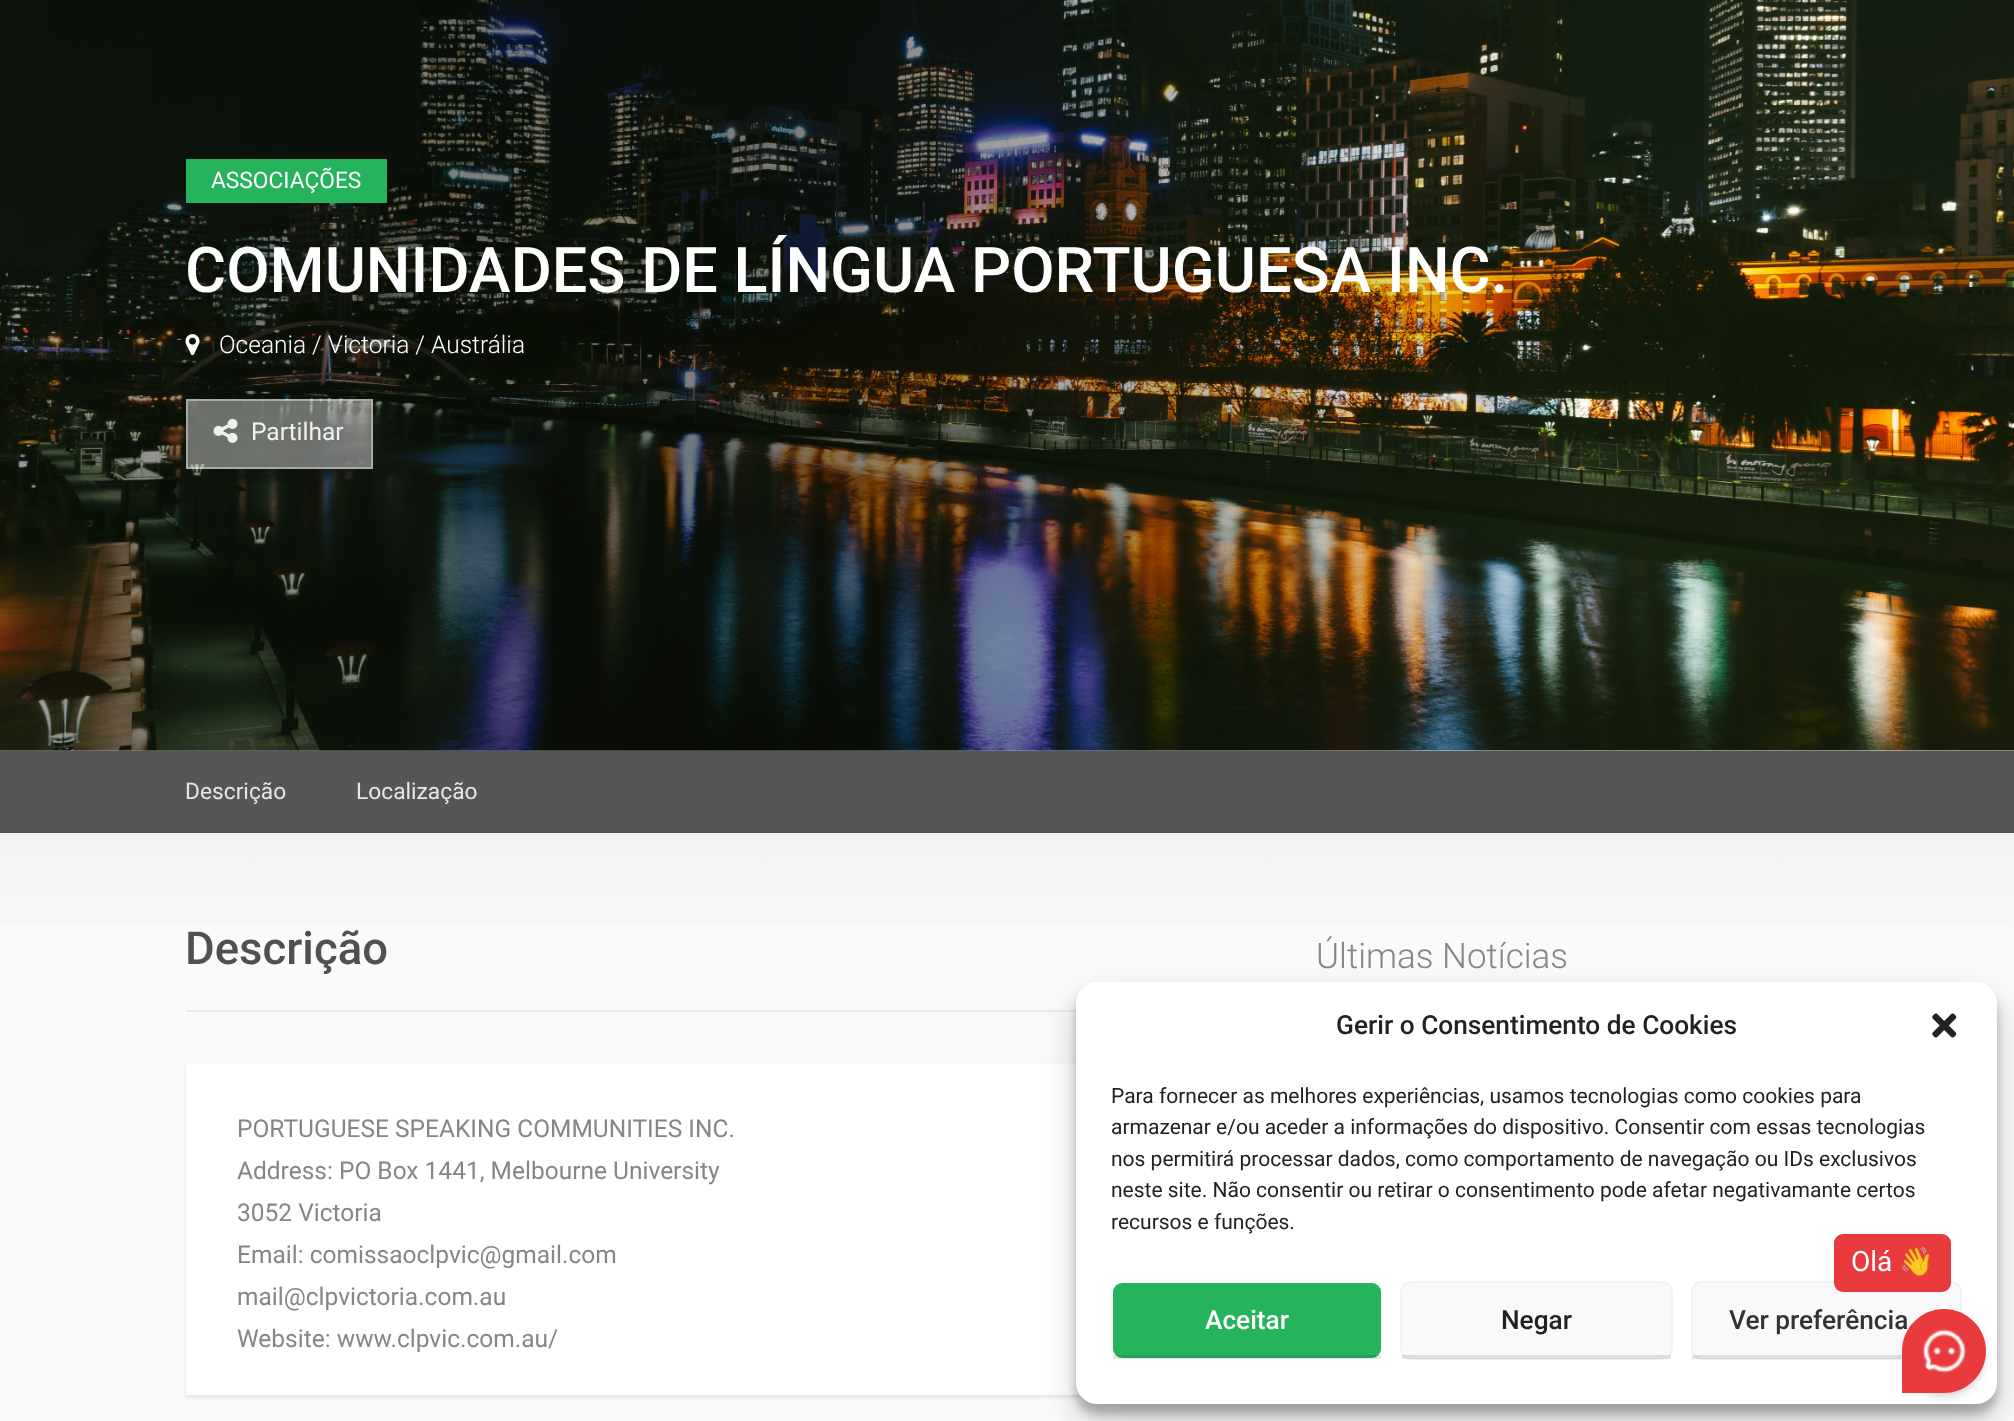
<svg xmlns="http://www.w3.org/2000/svg" width="2014" height="1421">
	<defs>
		<linearGradient id="g1" gradientUnits="userSpaceOnUse" x1="-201" y1="313" x2="2014" y2="313"><stop offset="0" stop-color="#000000" stop-opacity="0.3" /><stop offset="0.27" stop-color="#000000" stop-opacity="0.5" /><stop offset="0.45" stop-color="#000000" stop-opacity="0.5" /><stop offset="0.82" stop-color="#000000" stop-opacity="0" /></linearGradient>
		<linearGradient id="g2" gradientUnits="userSpaceOnUse" x1="1007" y1="833" x2="1007" y2="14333"><stop offset="0" stop-color="#F2F2F2" /><stop offset="0.01" stop-color="#FAFAFA" /></linearGradient>
	</defs>
	<rect width="100%" height="100%" fill="#FAFAFA" />
	<image x="0" y="0" width="2014" height="751" href="assets/img1.png" />
	<rect x="0" y="0" width="1580" height="751" fill="url(#g1)" />
	<rect x="186" y="159" width="201" height="44" fill="#25B45B" />
	<text x="211" y="188" font-family="Roboto" font-size="22.75" fill="#FFFFFF">ASSOCIAÇÕES</text>
	<text x="185" y="292" font-family="Roboto" font-size="63" font-weight="500" fill="#FFFFFF">COMUNIDADES DE LÍNGUA PORTUGUESA INC.</text>
	<image x="185" y="334" width="15" height="22" href="assets/img2.png" />
	<text x="219" y="353" font-family="Roboto" font-size="24.5" font-weight="300" fill="#FFFFFF">Oceania / Victoria / Austrália</text>
	<rect x="186" y="399" width="187" height="70" fill="#FFFFFF" fill-opacity="0.4" />
	<rect x="187" y="400" width="185" height="68" fill="none" stroke="#FFFFFF" stroke-opacity="0.4" stroke-width="2" />
	<image x="213" y="418" width="25" height="25" href="assets/img3.png" />
	<text x="251" y="440" font-family="Roboto" font-size="24.5" fill="#F1F1F1">Partilhar</text>
	<rect x="0" y="751" width="2014" height="82" fill="#565656" />
	<g font-family="Roboto" font-size="22.75" fill="#E6E6E6">
		<text x="185" y="799">Descrição</text>
		<text x="356" y="799">Localização</text>
	</g>
	<rect x="0" y="833" width="2014" height="93" fill="url(#g2)" />
	<rect x="186" y="1010" width="890" height="2" fill="#E9E9E9" />
	<text x="185" y="964" font-family="Roboto" font-size="45.5" font-weight="500" fill="#505050">Descrição</text>
	<rect x="186" y="1066" width="1078" height="331" fill="#000000" fill-opacity="0.1" filter="blur(2px)" />
	<rect x="186" y="1064" width="894" height="331" fill="#FFFFFF" />
	<g font-family="Roboto" font-size="24.5" fill="#868686">
		<text x="237" y="1137">PORTUGUESE SPEAKING COMMUNITIES INC.</text>
		<text x="237" y="1179">Address: PO Box 1441, Melbourne University</text>
		<text x="237" y="1221">3052 Victoria</text>
		<text x="237" y="1263">Email: comissaoclpvic@gmail.com</text>
		<text x="237" y="1305">mail@clpvictoria.com.au</text>
		<text x="237" y="1347">Website: www.clpvic.com.au/</text>
	</g>
	<text x="1316" y="968" font-family="Roboto" font-size="35" font-weight="300" fill="#868686">Últimas Notícias</text>
	<rect x="1076" y="992" width="921" height="422" rx="21" fill="#000000" fill-opacity="0.23" filter="blur(5px)" />
	<rect x="1076" y="999" width="921" height="422" rx="21" fill="#000000" fill-opacity="0.19" filter="blur(17.5px)" />
	<rect x="1076" y="982" width="921" height="422" rx="21" fill="#FFFFFF" />
	<text x="1336" y="1034" font-family="Roboto" font-size="26.25" font-weight="500" fill="#222222">Gerir o Consentimento de Cookies</text>
	<image x="1932" y="1013" width="25" height="25" href="assets/img4.png" />
	<g font-family="Roboto" font-size="21" fill="#222222">
		<text x="1111" y="1103">Para fornecer as melhores experiências, usamos tecnologias como cookies para</text>
		<text x="1111" y="1134">armazenar e/ou aceder a informações do dispositivo. Consentir com essas tecnologias</text>
		<text x="1111" y="1166">nos permitirá processar dados, como comportamento de navegação ou IDs exclusivos</text>
		<text x="1111" y="1197">neste site. Não consentir ou retirar o consentimento pode afetar negativamante certos</text>
		<text x="1111" y="1229">recursos e funções.</text>
	</g>
	<rect x="1112" y="1282" width="270" height="77" rx="10" fill="#25B45B" stroke="#FFFFFF" stroke-width="2" />
	<text x="1205" y="1329" font-family="Roboto" font-size="26.25" font-weight="500" fill="#FFFFFF">Aceitar</text>
	<rect x="1113" y="1355" width="268" height="4" fill="#000000" fill-opacity="0.1" />
	<rect x="1401" y="1282" width="271" height="77" rx="10" fill="#F9F9F9" stroke="#F2F2F2" stroke-width="2" />
	<text x="1501" y="1329" font-family="Roboto" font-size="26.25" font-weight="500" fill="#222222">Negar</text>
	<rect x="1402" y="1355" width="269" height="4" fill="#000000" fill-opacity="0.1" />
	<rect x="1692" y="1282" width="269" height="77" rx="10" fill="#F9F9F9" stroke="#F2F2F2" stroke-width="2" />
	<text x="1729" y="1329" font-family="Roboto" font-size="26.25" font-weight="500" fill="#333333">Ver preferência</text>
	<rect x="1692" y="1355" width="210" height="4" fill="#000000" fill-opacity="0.1" />
	<rect x="1834" y="1234" width="117" height="58" rx="9" fill="#E93B3E" />
	<text x="1851" y="1271" font-family="Roboto" font-size="28" fill="#FFFFFF">Olá</text>
	<text x="1899" y="1271" font-family="Noto Color Emoji" font-size="28" fill="#FFFFFF">👋</text>
	<rect x="1906" y="1316" width="77" height="77" rx="38.5" fill="#000000" fill-opacity="0.1" filter="blur(3.5px)" />
	<rect x="1904" y="1318" width="81" height="80" rx="40" fill="#000000" fill-opacity="0.1" filter="blur(5px)" />
	<path d="M1944 1309C1967 1309 1986 1328 1986 1351C1986 1374 1967 1393 1944 1393H1902V1351C1902 1328 1921 1309 1944 1309Z" fill="#E93B3E" />
	<image x="1922" y="1329" width="45" height="45" href="assets/img5.png" />
</svg>
